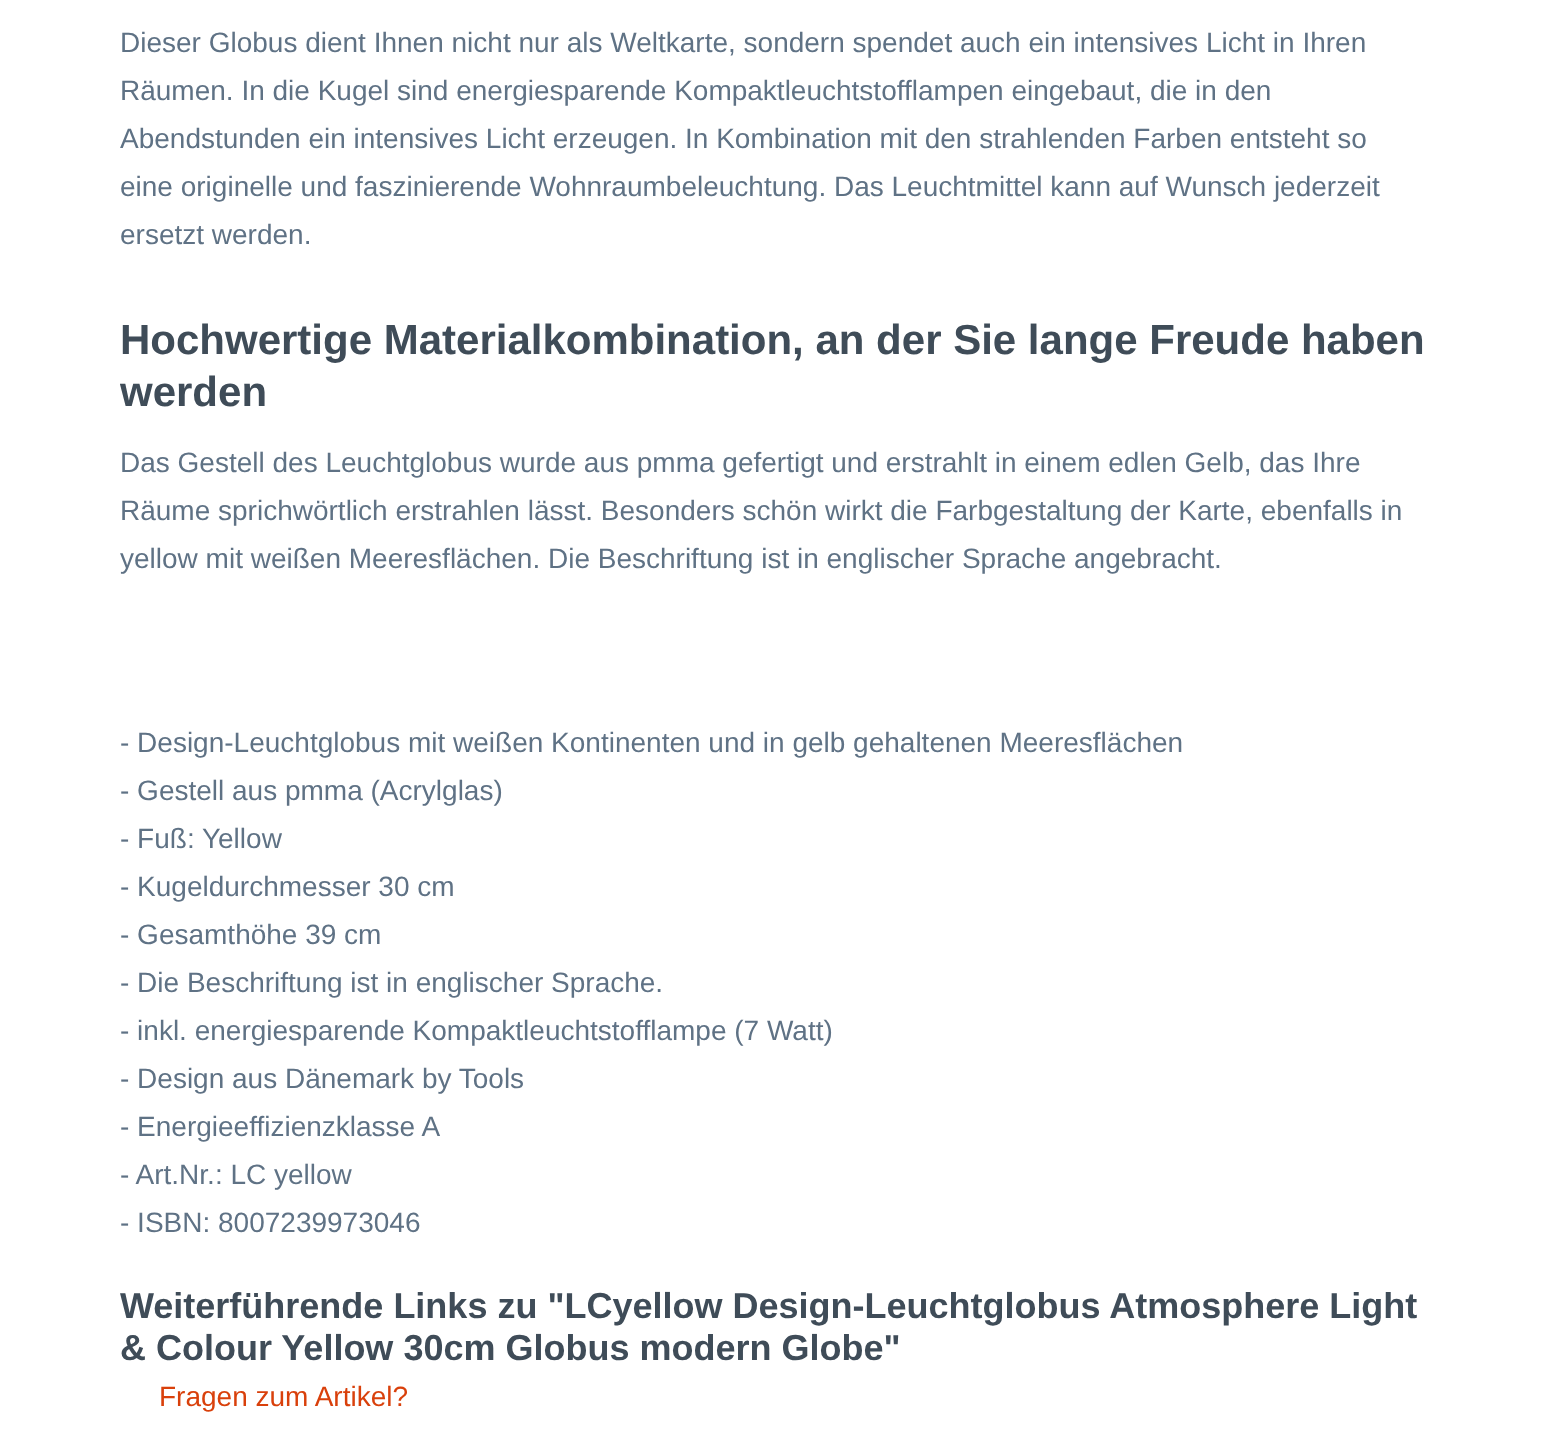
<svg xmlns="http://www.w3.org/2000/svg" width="1545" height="1429">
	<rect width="100%" height="100%" fill="#FFFFFF" />
	<g font-family="Liberation Sans" font-size="28" fill="#5F7285">
		<text x="120" y="52">Dieser Globus dient Ihnen nicht nur als Weltkarte, sondern spendet auch ein intensives Licht in Ihren</text>
		<text x="120" y="100">Räumen. In die Kugel sind energiesparende Kompaktleuchtstofflampen eingebaut, die in den</text>
		<text x="120" y="148">Abendstunden ein intensives Licht erzeugen. In Kombination mit den strahlenden Farben entsteht so</text>
		<text x="120" y="196">eine originelle und faszinierende Wohnraumbeleuchtung. Das Leuchtmittel kann auf Wunsch jederzeit</text>
		<text x="120" y="244">ersetzt werden.</text>
	</g>
	<g font-family="Liberation Sans" font-size="42" font-weight="700" fill="#3F4C58">
		<text x="120" y="354">Hochwertige Materialkombination, an der Sie lange Freude haben</text>
		<text x="120" y="406">werden</text>
	</g>
	<g font-family="Liberation Sans" font-size="28" fill="#5F7285">
		<text x="120" y="472">Das Gestell des Leuchtglobus wurde aus pmma gefertigt und erstrahlt in einem edlen Gelb, das Ihre</text>
		<text x="120" y="520">Räume sprichwörtlich erstrahlen lässt. Besonders schön wirkt die Farbgestaltung der Karte, ebenfalls in</text>
		<text x="120" y="568">yellow mit weißen Meeresflächen. Die Beschriftung ist in englischer Sprache angebracht.</text>
		<text x="120" y="752">- Design-Leuchtglobus mit weißen Kontinenten und in gelb gehaltenen Meeresflächen</text>
		<text x="120" y="800">- Gestell aus pmma (Acrylglas)</text>
		<text x="120" y="848">- Fuß: Yellow</text>
		<text x="120" y="896">- Kugeldurchmesser 30 cm</text>
		<text x="120" y="944">- Gesamthöhe 39 cm</text>
		<text x="120" y="992">- Die Beschriftung ist in englischer Sprache.</text>
		<text x="120" y="1040">- inkl. energiesparende Kompaktleuchtstofflampe (7 Watt)</text>
		<text x="120" y="1088">- Design aus Dänemark by Tools</text>
		<text x="120" y="1136">- Energieeffizienzklasse A</text>
		<text x="120" y="1184">- Art.Nr.: LC yellow</text>
		<text x="120" y="1232">- ISBN: 8007239973046</text>
	</g>
	<g font-family="Liberation Sans" font-size="36" font-weight="700" fill="#3F4C58">
		<text x="120" y="1318">Weiterführende Links zu "LCyellow Design-Leuchtglobus Atmosphere Light</text>
		<text x="120" y="1360">&amp; Colour Yellow 30cm Globus modern Globe"</text>
	</g>
	<text x="159" y="1406" font-family="Liberation Sans" font-size="28" fill="#D9400B">Fragen zum Artikel?</text>
</svg>
